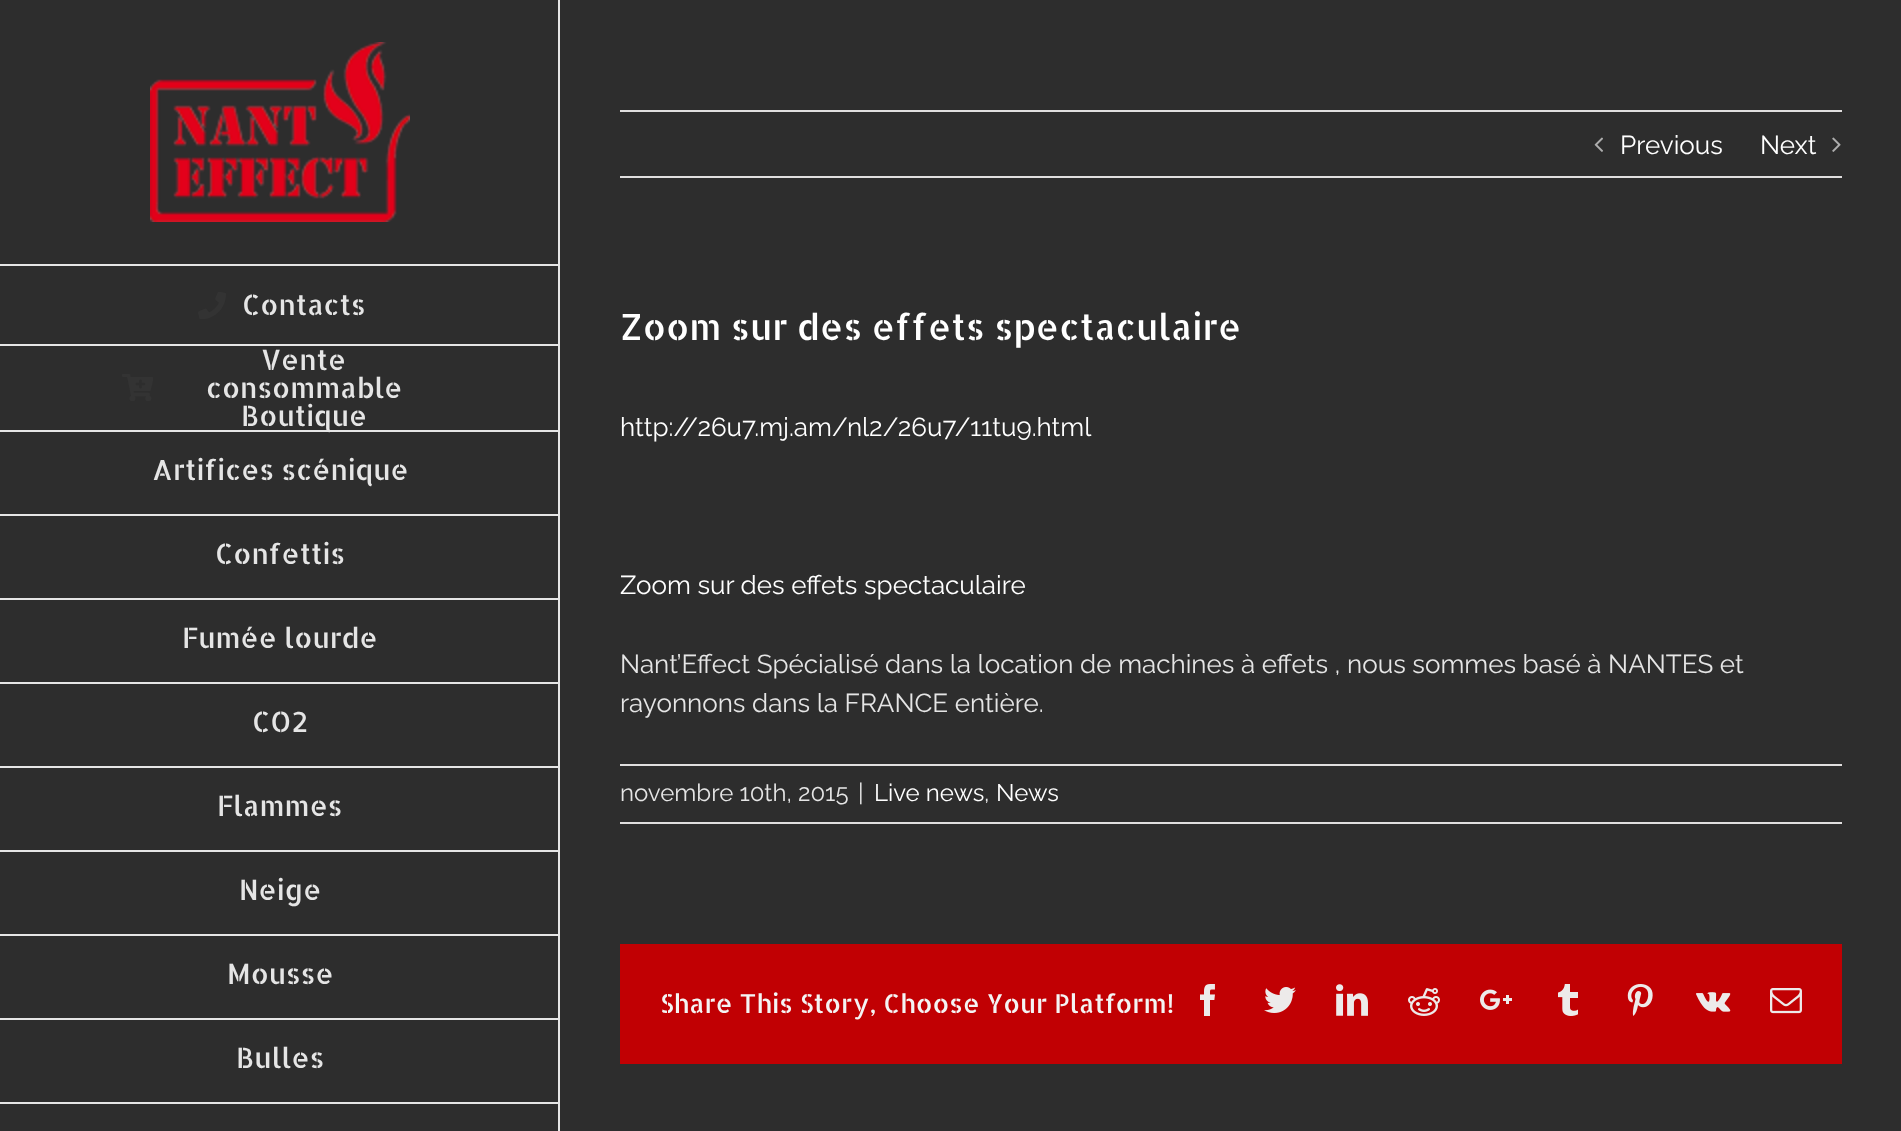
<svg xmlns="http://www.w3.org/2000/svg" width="1901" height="1131">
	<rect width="100%" height="100%" fill="#2D2D2D" />
	<image x="150" y="42" width="260" height="180" href="assets/img1.png" />
	<rect x="558" y="0" width="2" height="1131" fill="#E5E5E5" />
	<rect x="0" y="264" width="560" height="2" fill="#E5E5E5" />
	<rect x="0" y="344" width="560" height="2" fill="#E5E5E5" />
	<image x="198" y="292" width="28" height="27" href="assets/img2.png" />
	<text x="242" y="315" font-family="Allerta Stencil" font-size="28" fill="#E5E5E5">Contacts</text>
	<rect x="0" y="430" width="560" height="2" fill="#E5E5E5" />
	<image x="122" y="374" width="31" height="27" href="assets/img3.png" />
	<g font-family="Allerta Stencil" font-size="28" fill="#E5E5E5">
		<text x="261" y="370">Vente</text>
		<text x="206" y="398">consommable</text>
		<text x="241" y="426">Boutique</text>
	</g>
	<rect x="0" y="514" width="560" height="2" fill="#E5E5E5" />
	<text x="152" y="480" font-family="Allerta Stencil" font-size="28" fill="#E5E5E5">Artifices scénique</text>
	<rect x="0" y="598" width="560" height="2" fill="#E5E5E5" />
	<text x="215" y="564" font-family="Allerta Stencil" font-size="28" fill="#E5E5E5">Confettis</text>
	<rect x="0" y="682" width="560" height="2" fill="#E5E5E5" />
	<text x="182" y="648" font-family="Allerta Stencil" font-size="28" fill="#E5E5E5">Fumée lourde</text>
	<rect x="0" y="766" width="560" height="2" fill="#E5E5E5" />
	<text x="252" y="732" font-family="Allerta Stencil" font-size="28" fill="#E5E5E5">CO2</text>
	<rect x="0" y="850" width="560" height="2" fill="#E5E5E5" />
	<text x="217" y="816" font-family="Allerta Stencil" font-size="28" fill="#E5E5E5">Flammes</text>
	<rect x="0" y="934" width="560" height="2" fill="#E5E5E5" />
	<text x="239" y="900" font-family="Allerta Stencil" font-size="28" fill="#E5E5E5">Neige</text>
	<rect x="0" y="1018" width="560" height="2" fill="#E5E5E5" />
	<text x="227" y="984" font-family="Allerta Stencil" font-size="28" fill="#E5E5E5">Mousse</text>
	<rect x="0" y="1102" width="560" height="2" fill="#E5E5E5" />
	<text x="236" y="1068" font-family="Allerta Stencil" font-size="28" fill="#E5E5E5">Bulles</text>
	<rect x="620" y="110" width="1222" height="2" fill="#E0DEDE" />
	<rect x="620" y="176" width="1222" height="2" fill="#E0DEDE" />
	<image x="1594" y="137" width="9" height="15" href="assets/img4.png" />
	<g font-family="Raleway" font-size="26" font-weight="100" fill="#FFFFFF">
		<text x="1620" y="154">Previous</text>
		<text x="1760" y="154">Next</text>
	</g>
	<image x="1832" y="137" width="9" height="15" href="assets/img5.png" />
	<text x="620" y="340" font-family="Allerta Stencil" font-size="36" fill="#FFFFFF">Zoom sur des effets spectaculaire</text>
	<g font-family="Raleway" font-size="26" font-weight="100" fill="#FFFFFF">
		<text x="620" y="436">http://26u7.mj.am/nl2/26u7/11tu9.html</text>
		<text x="620" y="594">Zoom sur des effets spectaculaire</text>
	</g>
	<g font-family="Raleway" font-size="26" font-weight="100" fill="#E5E5E5">
		<text x="620" y="673">Nant’Effect Spécialisé dans la location de machines à effets , nous sommes basé à NANTES et</text>
		<text x="620" y="712">rayonnons dans la FRANCE entière.</text>
	</g>
	<rect x="620" y="764" width="1222" height="2" fill="#E0DEDE" />
	<rect x="620" y="822" width="1222" height="2" fill="#E0DEDE" />
	<g font-family="Raleway" font-size="24" font-weight="100" fill="#E5E5E5">
		<text x="620" y="801">novembre 10th, 2015</text>
		<text x="858" y="801">|</text>
	</g>
	<text x="874" y="801" font-family="Raleway" font-size="24" font-weight="100" fill="#FFFFFF">Live news</text>
	<text x="984" y="801" font-family="Raleway" font-size="24" font-weight="100" fill="#E5E5E5">,</text>
	<text x="996" y="801" font-family="Raleway" font-size="24" font-weight="100" fill="#FFFFFF">News</text>
	<rect x="620" y="944" width="1222" height="120" fill="#C10003" />
	<text x="660" y="1013" font-family="Allerta Stencil" font-size="26" fill="#F4F4F4">Share This Story, Choose Your Platform!</text>
	<image x="1200" y="984" width="15" height="32" href="assets/img6.png" />
	<image x="1264" y="987" width="32" height="26" href="assets/img7.png" />
	<image x="1336" y="984" width="32" height="32" href="assets/img8.png" />
	<image x="1408" y="988" width="32" height="28" href="assets/img9.png" />
	<image x="1480" y="989" width="32" height="21" href="assets/img10.png" />
	<image x="1558" y="984" width="20" height="32" href="assets/img11.png" />
	<image x="1627" y="984" width="26" height="32" href="assets/img12.png" />
	<image x="1696" y="992" width="35" height="20" href="assets/img13.png" />
	<image x="1770" y="988" width="32" height="26" href="assets/img14.png" />
</svg>
